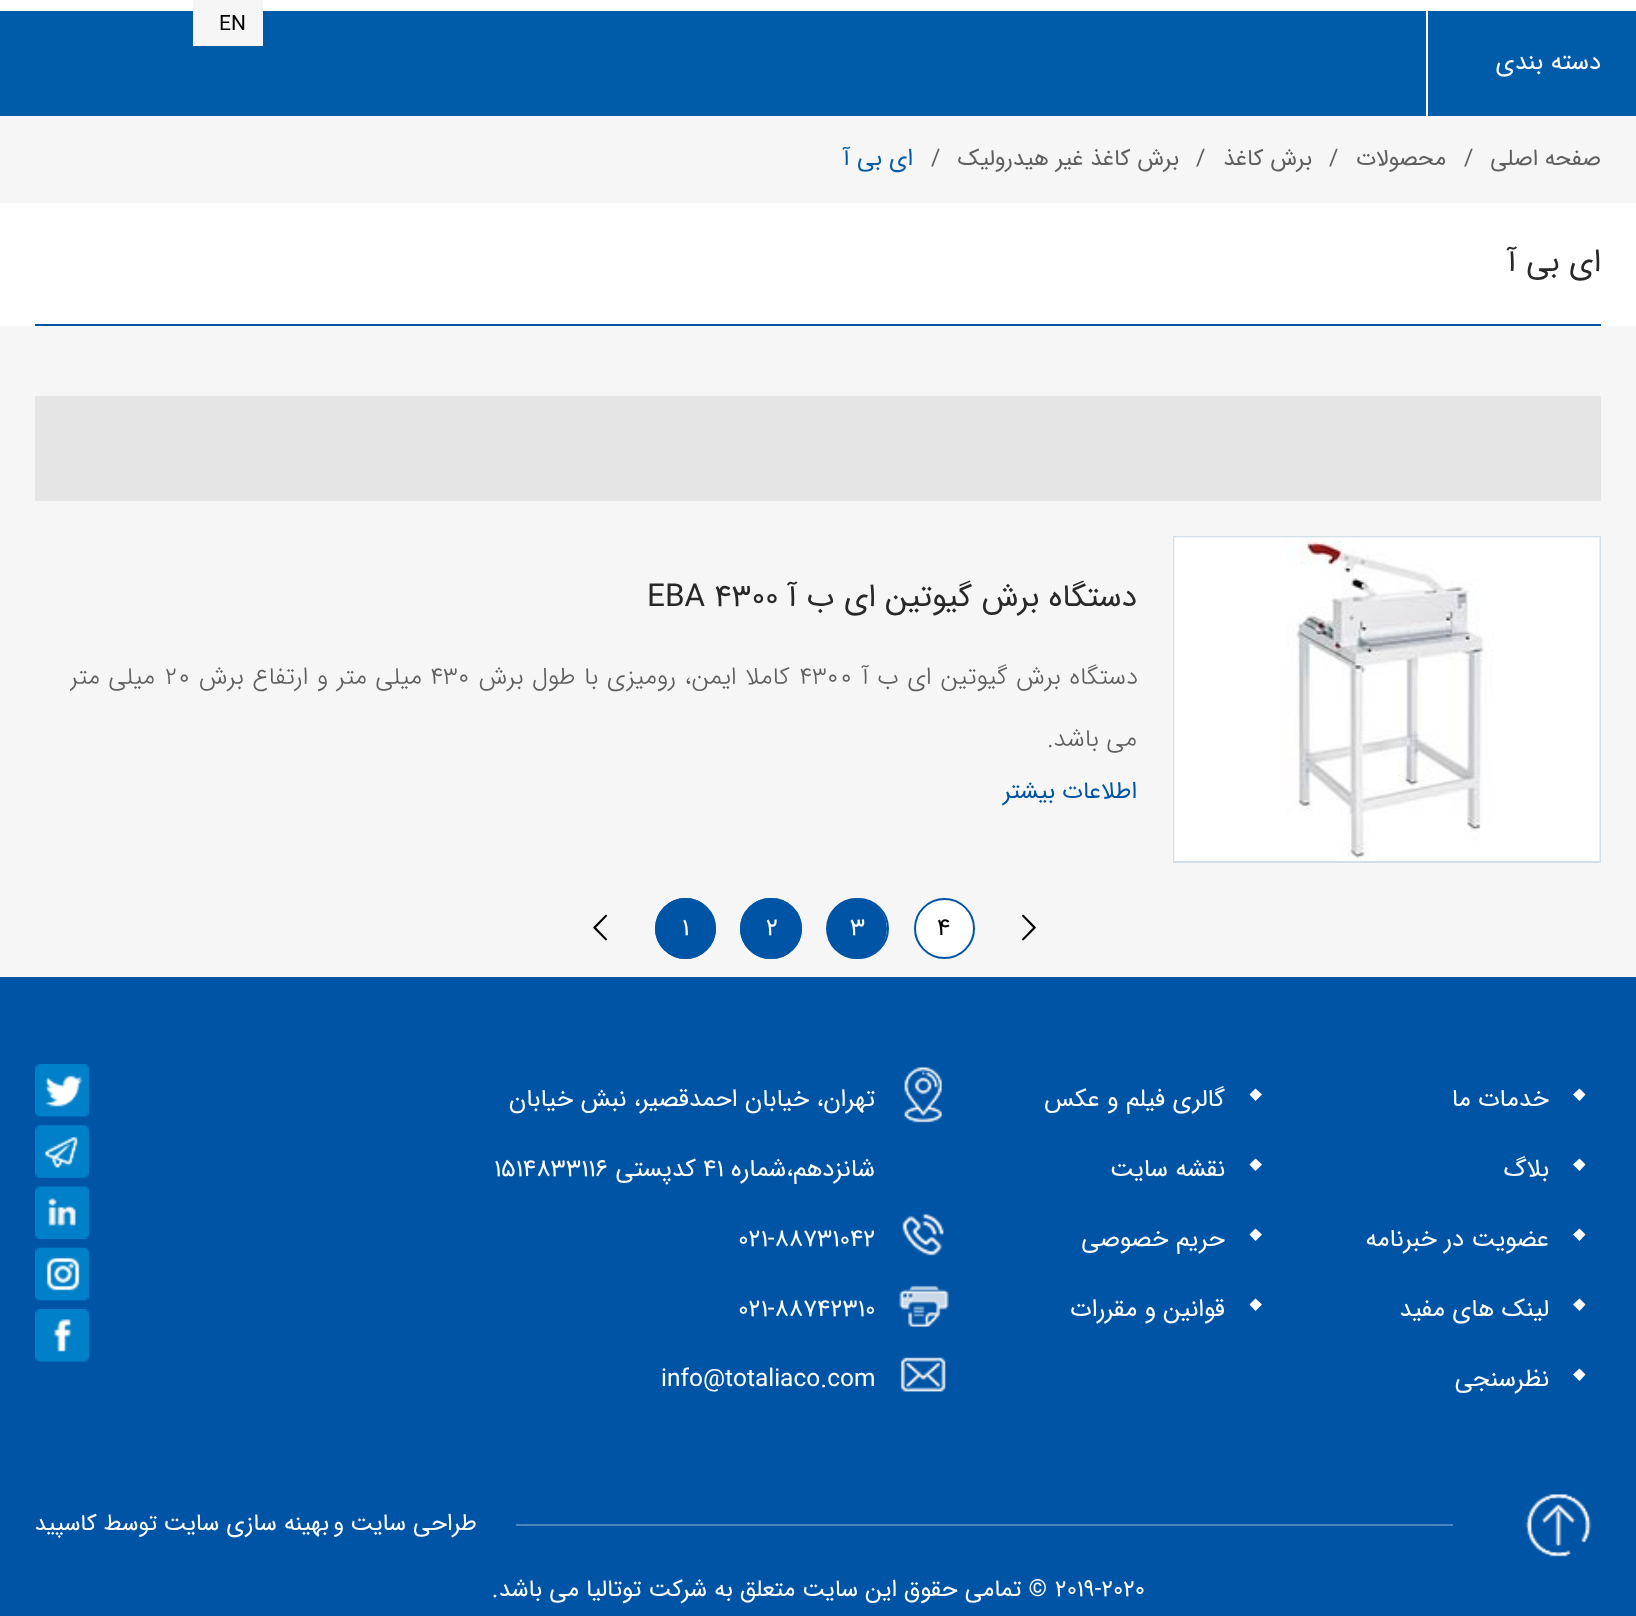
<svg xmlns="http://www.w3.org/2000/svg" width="1636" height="1616">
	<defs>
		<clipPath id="clip1"><rect x="70" y="648" width="1068" height="122" /></clipPath>
	</defs>
	<rect width="100%" height="100%" fill="#FFFFFF" />
	<rect x="0" y="11" width="1636" height="105" fill="#005CA9" />
	<rect x="193" y="0" width="70" height="46" fill="#F6F6F6" />
	<text x="219" y="30" font-family="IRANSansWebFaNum" font-size="21" fill="#000000">EN</text>
	<rect x="1426" y="11" width="2" height="105" fill="#FFFFFF" />
	<text x="1601" y="69" font-family="IRANSansWebFaNum" font-size="24.5" direction="rtl" fill="#FEFEFE">دسته بندی</text>
	<rect x="0" y="116" width="1636" height="861" fill="#F6F6F6" />
	<text x="1601" y="165" font-family="IRANSansWebFaNum" font-size="22.75" direction="rtl" fill="#5F5F5F">صفحه اصلی</text>
	<text x="1464" y="165" font-family="IRANSansWebFaNum" font-size="22.75" fill="#5F5F5F">/</text>
	<text x="1446" y="165" font-family="IRANSansWebFaNum" font-size="22.75" direction="rtl" fill="#5F5F5F">محصولات</text>
	<text x="1329" y="165" font-family="IRANSansWebFaNum" font-size="22.75" fill="#5F5F5F">/</text>
	<text x="1312" y="165" font-family="IRANSansWebFaNum" font-size="22.75" direction="rtl" fill="#5F5F5F">برش کاغذ</text>
	<text x="1196" y="165" font-family="IRANSansWebFaNum" font-size="22.75" fill="#5F5F5F">/</text>
	<text x="1179" y="165" font-family="IRANSansWebFaNum" font-size="22.75" direction="rtl" fill="#5F5F5F">برش کاغذ غیر هیدرولیک</text>
	<text x="931" y="165" font-family="IRANSansWebFaNum" font-size="22.75" fill="#5F5F5F">/</text>
	<text x="913" y="165" font-family="IRANSansWebFaNum" font-size="23.6" direction="rtl" fill="#005CA9">ای بی آ</text>
	<rect x="0" y="203" width="1636" height="123" fill="#FFFFFF" />
	<rect x="35" y="324" width="1566" height="2" fill="#0054A6" />
	<text x="1601" y="271" font-family="IRANSansWebFaNum" font-size="31.5" direction="rtl" fill="#282828">ای بی آ</text>
	<rect x="35" y="396" width="1566" height="105" fill="#E5E5E5" />
	<rect x="1174" y="537" width="426" height="325" fill="none" stroke="#D1DFEB" stroke-width="2" />
	<image x="1174" y="537" width="426" height="324" href="assets/img1.png" />
	<text x="1137" y="606" font-family="IRANSansWebFaNum" font-size="31.5" direction="rtl" fill="#282828">دستگاه برش گیوتین ای ب آ</text>
	<text x="647" y="606" font-family="IRANSansWebFaNum" font-size="31.5" fill="#282828">EBA 4300</text>
	<text x="1138" y="684" word-spacing="1" font-family="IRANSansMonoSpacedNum" font-size="24.5" font-weight="300" direction="rtl" fill="#5F5F5F">دستگاه برش گیوتین ای ب آ</text>
	<text x="799" y="684" font-family="IRANSansMonoSpacedNum" font-size="24.5" font-weight="300" fill="#5F5F5F">4300</text>
	<text x="790" y="684" word-spacing="1" font-family="IRANSansMonoSpacedNum" font-size="24.5" font-weight="300" direction="rtl" fill="#5F5F5F">کاملا ایمن، رومیزی با طول برش</text>
	<text x="430" y="684" font-family="IRANSansMonoSpacedNum" font-size="24.5" font-weight="300" fill="#5F5F5F">430</text>
	<text x="422" y="684" word-spacing="1" font-family="IRANSansMonoSpacedNum" font-size="24.5" font-weight="300" direction="rtl" fill="#5F5F5F">میلی متر و ارتفاع برش</text>
	<text x="164" y="684" font-family="IRANSansMonoSpacedNum" font-size="24.5" font-weight="300" fill="#5F5F5F">20</text>
	<g clip-path="url(#clip1)">
		<text x="155" y="684" word-spacing="1" font-family="IRANSansMonoSpacedNum" font-size="24.5" font-weight="300" direction="rtl" fill="#5F5F5F">میلی متر</text>
	</g>
	<text x="1137" y="746" font-family="IRANSansMonoSpacedNum" font-size="24.5" font-weight="300" direction="rtl" fill="#5F5F5F">می باشد.</text>
	<text x="1137" y="798" font-family="IRANSansWebFaNum" font-size="23.6" direction="rtl" fill="#0054A6">اطلاعات بیشتر</text>
	<image x="1022" y="914" width="14" height="27" href="assets/img2.png" />
	<circle cx="944.5" cy="928.5" r="29.5" fill="#FFFFFF" stroke="#0054A6" stroke-width="2" />
	<text x="937" y="935" font-family="IRANSansWebFaNum" font-size="24.5" fill="#000000">4</text>
	<circle cx="858.5" cy="928.5" r="29.5" fill="none" stroke="#0054A6" stroke-width="2" />
	<circle cx="856.5" cy="928.5" r="30.5" fill="#0054A6" />
	<text x="850" y="935" font-family="IRANSansWebFaNum" font-size="24.5" fill="#FEFEFE">3</text>
	<rect x="741" y="899" width="60" height="59" rx="29.5" fill="none" stroke="#0054A6" stroke-width="2" />
	<rect x="740" y="898" width="62" height="61" rx="30.5" fill="#0054A6" />
	<text x="766" y="935" font-family="IRANSansWebFaNum" font-size="24.5" fill="#FEFEFE">2</text>
	<circle cx="685.5" cy="928.5" r="29.5" fill="none" stroke="#0054A6" stroke-width="2" />
	<circle cx="685.5" cy="928.5" r="30.5" fill="#0054A6" />
	<text x="682" y="935" font-family="IRANSansWebFaNum" font-size="24.5" fill="#FEFEFE">1</text>
	<image x="593" y="914" width="15" height="27" href="assets/img3.png" />
	<rect x="0" y="977" width="1636" height="639" fill="#0054A6" />
	<path d="M1579.5 1088.5L1585.5 1094.5L1579.5 1101L1573 1094.5Z" fill="#FFFFFF" />
	<text x="1549" y="1106" font-family="IRANSansWebFaNum" font-size="24.5" direction="rtl" fill="#FEFEFE">خدمات ما</text>
	<path d="M1579.5 1158.5L1585.5 1164.5L1579.5 1171L1573 1164.5Z" fill="#FFFFFF" />
	<text x="1549" y="1176" font-family="IRANSansWebFaNum" font-size="24.5" direction="rtl" fill="#FEFEFE">بلاگ</text>
	<path d="M1579.5 1228.5L1585.5 1234.5L1579.5 1241L1573 1234.5Z" fill="#FFFFFF" />
	<text x="1549" y="1246" font-family="IRANSansWebFaNum" font-size="24.5" direction="rtl" fill="#FEFEFE">عضویت در خبرنامه</text>
	<path d="M1579.5 1298.5L1585.5 1304.5L1579.5 1311L1573 1304.5Z" fill="#FFFFFF" />
	<text x="1549" y="1316" font-family="IRANSansWebFaNum" font-size="24.5" direction="rtl" fill="#FEFEFE">لینک های مفید</text>
	<path d="M1579.5 1368.5L1585.5 1374.5L1579.5 1381L1573 1374.5Z" fill="#FFFFFF" />
	<text x="1549" y="1386" font-family="IRANSansWebFaNum" font-size="24.5" direction="rtl" fill="#FEFEFE">نظرسنجی</text>
	<path d="M1255.5 1088.5L1262 1094.5L1255.5 1101L1249.5 1094.5Z" fill="#FFFFFF" />
	<text x="1225" y="1106" font-family="IRANSansWebFaNum" font-size="24.5" direction="rtl" fill="#FEFEFE">گالری فیلم و عکس</text>
	<path d="M1255.5 1158.5L1262 1164.5L1255.5 1171L1249.5 1164.5Z" fill="#FFFFFF" />
	<text x="1225" y="1176" font-family="IRANSansWebFaNum" font-size="24.5" direction="rtl" fill="#FEFEFE">نقشه سایت</text>
	<path d="M1255.5 1228.5L1262 1234.5L1255.5 1241L1249.5 1234.5Z" fill="#FFFFFF" />
	<text x="1225" y="1246" font-family="IRANSansWebFaNum" font-size="24.5" direction="rtl" fill="#FEFEFE">حریم خصوصی</text>
	<path d="M1255.5 1298.5L1262 1304.5L1255.5 1311L1249.5 1304.5Z" fill="#FFFFFF" />
	<text x="1225" y="1316" font-family="IRANSansWebFaNum" font-size="24.5" direction="rtl" fill="#FEFEFE">قوانین و مقررات</text>
	<image x="904" y="1067" width="38" height="56" href="assets/img4.png" />
	<g font-family="IRANSansWebFaNum" font-size="24.5" direction="rtl" fill="#FEFEFE">
		<text x="875" y="1106">تهران، خیابان احمدقصیر، نبش خیابان</text>
		<text x="875" y="1176">شانزدهم،شماره</text>
	</g>
	<text x="703" y="1176" font-family="IRANSansWebFaNum" font-size="24.5" fill="#FEFEFE">41</text>
	<text x="696" y="1176" font-family="IRANSansWebFaNum" font-size="24.5" direction="rtl" fill="#FEFEFE">کدپستی</text>
	<text x="494" y="1176" font-family="IRANSansWebFaNum" font-size="24.5" fill="#FEFEFE">1514833116</text>
	<image x="902" y="1214" width="42" height="42" href="assets/img5.png" />
	<text x="738" y="1246" font-family="IRANSansWebFaNum" font-size="24.5" fill="#FEFEFE">021-88731042</text>
	<image x="899" y="1285" width="50" height="42" href="assets/img6.png" />
	<text x="738" y="1316" font-family="IRANSansWebFaNum" font-size="24.5" fill="#FEFEFE">021-88742310</text>
	<image x="900" y="1357" width="46" height="35" href="assets/img7.png" />
	<text x="661" y="1386" font-family="IRANSansWebFaNum" font-size="24.5" fill="#FEFEFE">info@totaliaco.com</text>
	<image x="35" y="1064" width="55" height="53" href="assets/img8.png" />
	<image x="35" y="1125" width="55" height="53" href="assets/img9.png" />
	<image x="35" y="1186" width="55" height="53" href="assets/img10.png" />
	<image x="35" y="1247" width="55" height="54" href="assets/img11.png" />
	<image x="35" y="1309" width="55" height="53" href="assets/img12.png" />
	<image x="1525" y="1494" width="67" height="63" href="assets/img13.png" />
	<rect x="516" y="1524" width="937" height="2" fill="#4D87C1" />
	<text x="477" y="1530" font-family="IRANSansWebFaNum" font-size="23.6" direction="rtl" fill="#FEFEFE">طراحی سایت</text>
	<text x="344" y="1530" font-family="IRANSansWebFaNum" font-size="22.75" direction="rtl" fill="#FEFEFE">و</text>
	<text x="329" y="1530" font-family="IRANSansWebFaNum" font-size="23.6" direction="rtl" fill="#FEFEFE">بهینه سازی سایت</text>
	<text x="157" y="1530" font-family="IRANSansWebFaNum" font-size="22.75" direction="rtl" fill="#FEFEFE">توسط کاسپید</text>
	<text x="1055" y="1596" font-family="IRANSansWebFaNum" font-size="23.6" fill="#FEFEFE">2019-2020</text>
	<text x="1047" y="1596" font-family="IRANSansWebFaNum" font-size="23.6" direction="rtl" fill="#FEFEFE">© تمامی حقوق این سایت متعلق به شرکت توتالیا می باشد.</text>
</svg>
